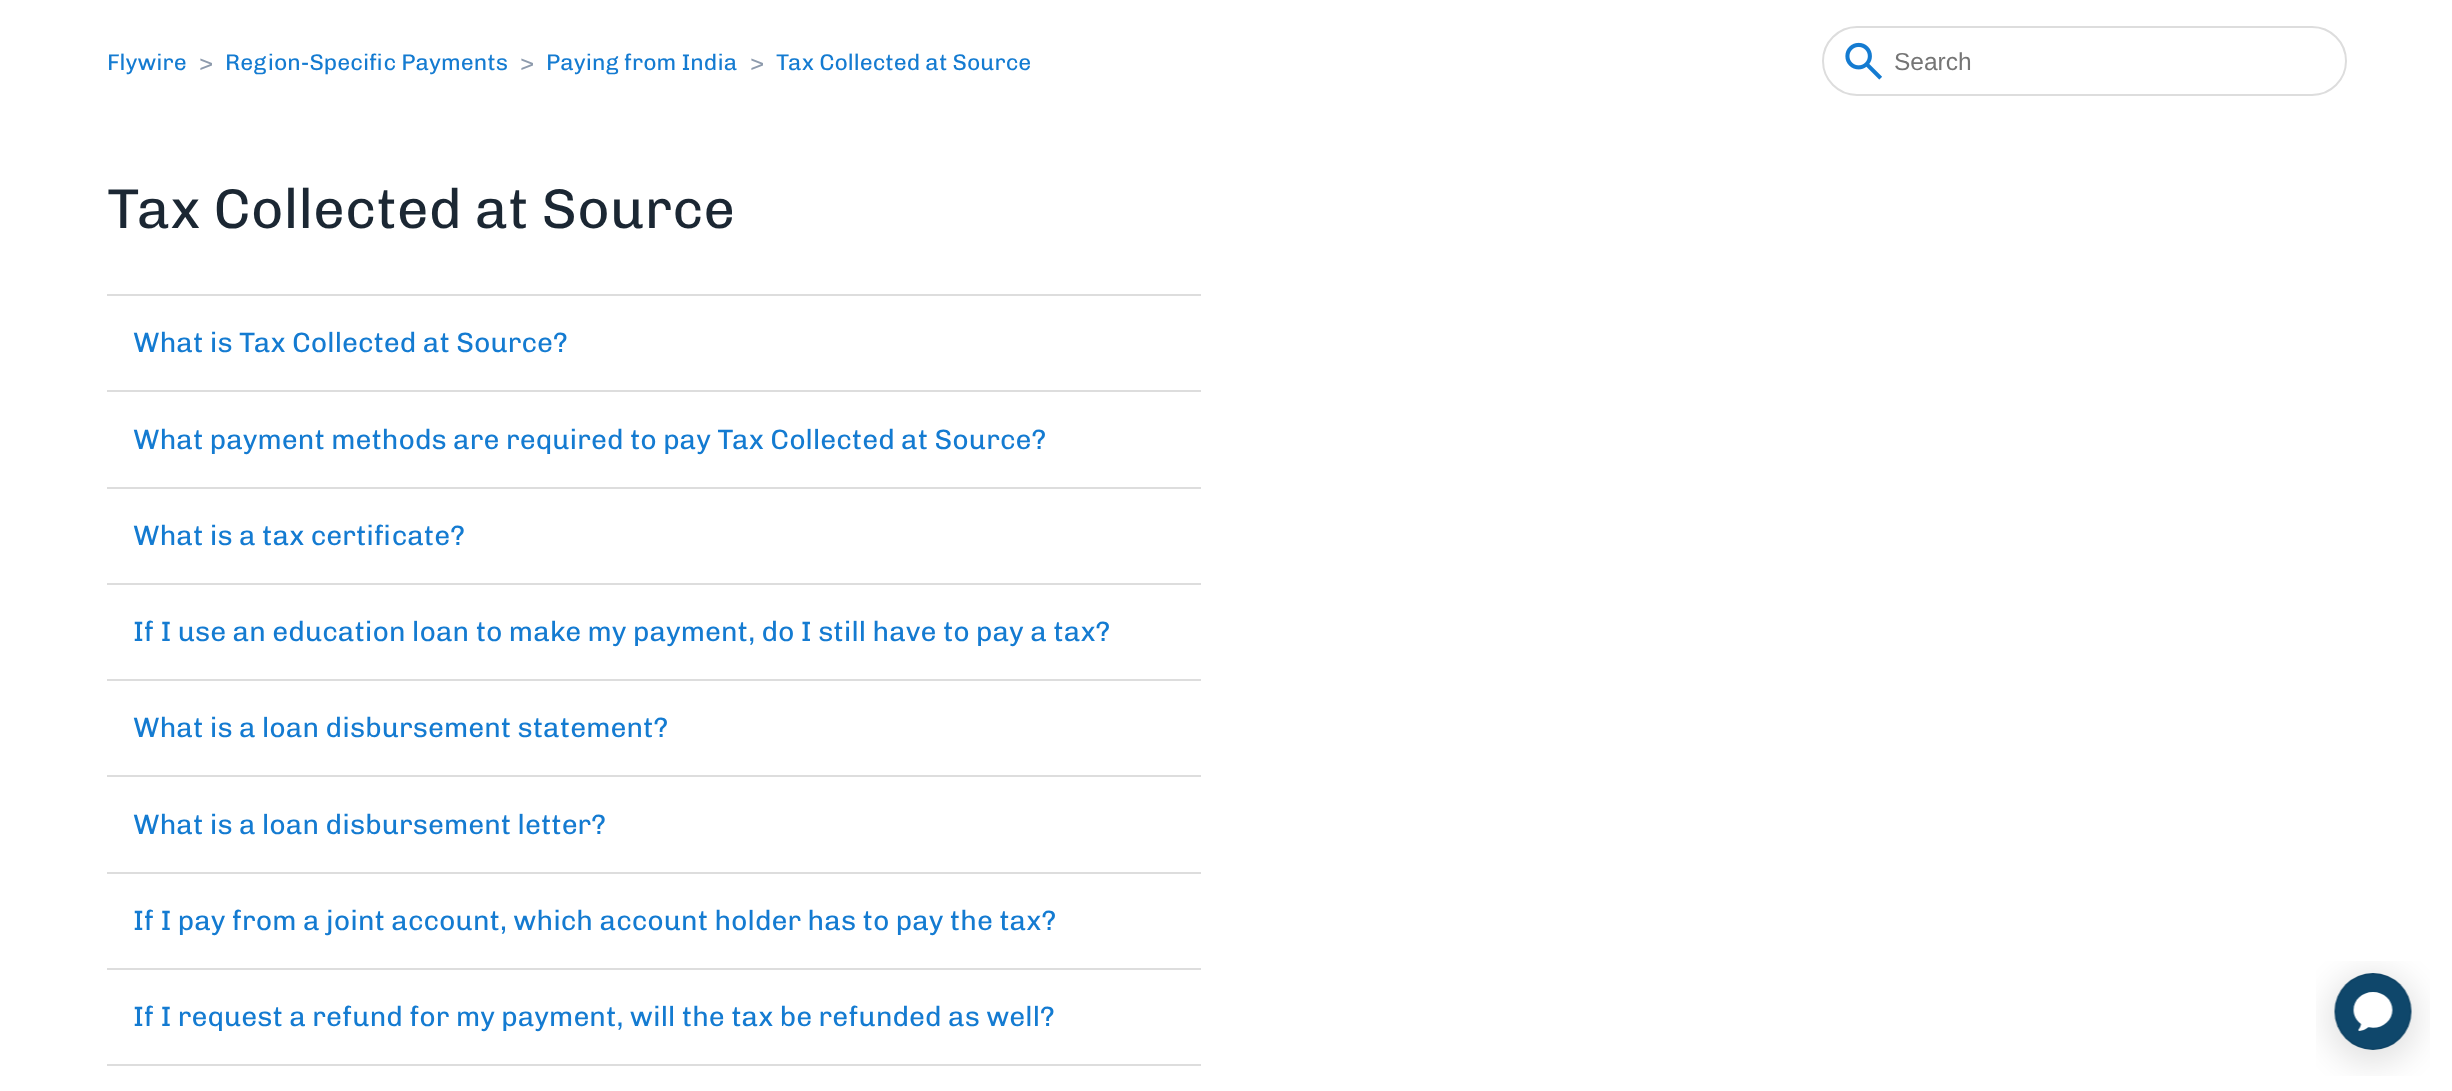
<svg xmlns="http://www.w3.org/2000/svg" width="2452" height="1091">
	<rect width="100%" height="100%" fill="#FFFFFF" />
	<text x="107" y="70" font-family="Chivo" font-size="22.75" fill="#147BD1">Flywire</text>
	<text x="199" y="70" font-family="Chivo" font-size="22.75" fill="#8E9BAD">&gt;</text>
	<text x="225" y="70" font-family="Chivo" font-size="22.75" fill="#147BD1">Region-Specific Payments</text>
	<text x="520" y="70" font-family="Chivo" font-size="22.75" fill="#8E9BAD">&gt;</text>
	<text x="546" y="70" font-family="Chivo" font-size="22.75" fill="#147BD1">Paying from India</text>
	<text x="750" y="70" font-family="Chivo" font-size="22.75" fill="#8E9BAD">&gt;</text>
	<text x="776" y="70" font-family="Chivo" font-size="22.75" fill="#147BD1">Tax Collected at Source</text>
	<rect x="1823" y="27" width="523" height="68" rx="34" fill="none" stroke="#DDDDDD" stroke-width="2" />
	<image x="1845" y="42" width="37" height="38" href="assets/img1.png" />
	<text x="1894" y="70" font-family="Liberation Sans" font-size="24.5" fill="#757575">Search</text>
	<text x="107" y="228" font-family="Chivo" font-size="56" fill="#1B2733">Tax Collected at Source</text>
	<rect x="107" y="294" width="1094" height="2" fill="#DDDDDD" />
	<text x="133" y="352" font-family="Chivo" font-size="28" fill="#147BD1">What is Tax Collected at Source?</text>
	<rect x="107" y="390" width="1094" height="2" fill="#DDDDDD" />
	<text x="133" y="449" font-family="Chivo" font-size="28" fill="#147BD1">What payment methods are required to pay Tax Collected at Source?</text>
	<rect x="107" y="487" width="1094" height="2" fill="#DDDDDD" />
	<text x="133" y="545" font-family="Chivo" font-size="28" fill="#147BD1">What is a tax certificate?</text>
	<rect x="107" y="583" width="1094" height="2" fill="#DDDDDD" />
	<text x="133" y="641" font-family="Chivo" font-size="28" fill="#147BD1">If I use an education loan to make my payment, do I still have to pay a tax?</text>
	<rect x="107" y="679" width="1094" height="2" fill="#DDDDDD" />
	<text x="133" y="737" font-family="Chivo" font-size="28" fill="#147BD1">What is a loan disbursement statement?</text>
	<rect x="107" y="775" width="1094" height="2" fill="#DDDDDD" />
	<text x="133" y="834" font-family="Chivo" font-size="28" fill="#147BD1">What is a loan disbursement letter?</text>
	<rect x="107" y="872" width="1094" height="2" fill="#DDDDDD" />
	<text x="133" y="930" font-family="Chivo" font-size="28" fill="#147BD1">If I pay from a joint account, which account holder has to pay the tax?</text>
	<rect x="107" y="968" width="1094" height="2" fill="#DDDDDD" />
	<text x="133" y="1026" font-family="Chivo" font-size="28" fill="#147BD1">If I request a refund for my payment, will the tax be refunded as well?</text>
	<rect x="107" y="1064" width="1094" height="2" fill="#DDDDDD" />
	<image x="2316" y="961" width="114" height="115" href="assets/img2.png" />
</svg>
